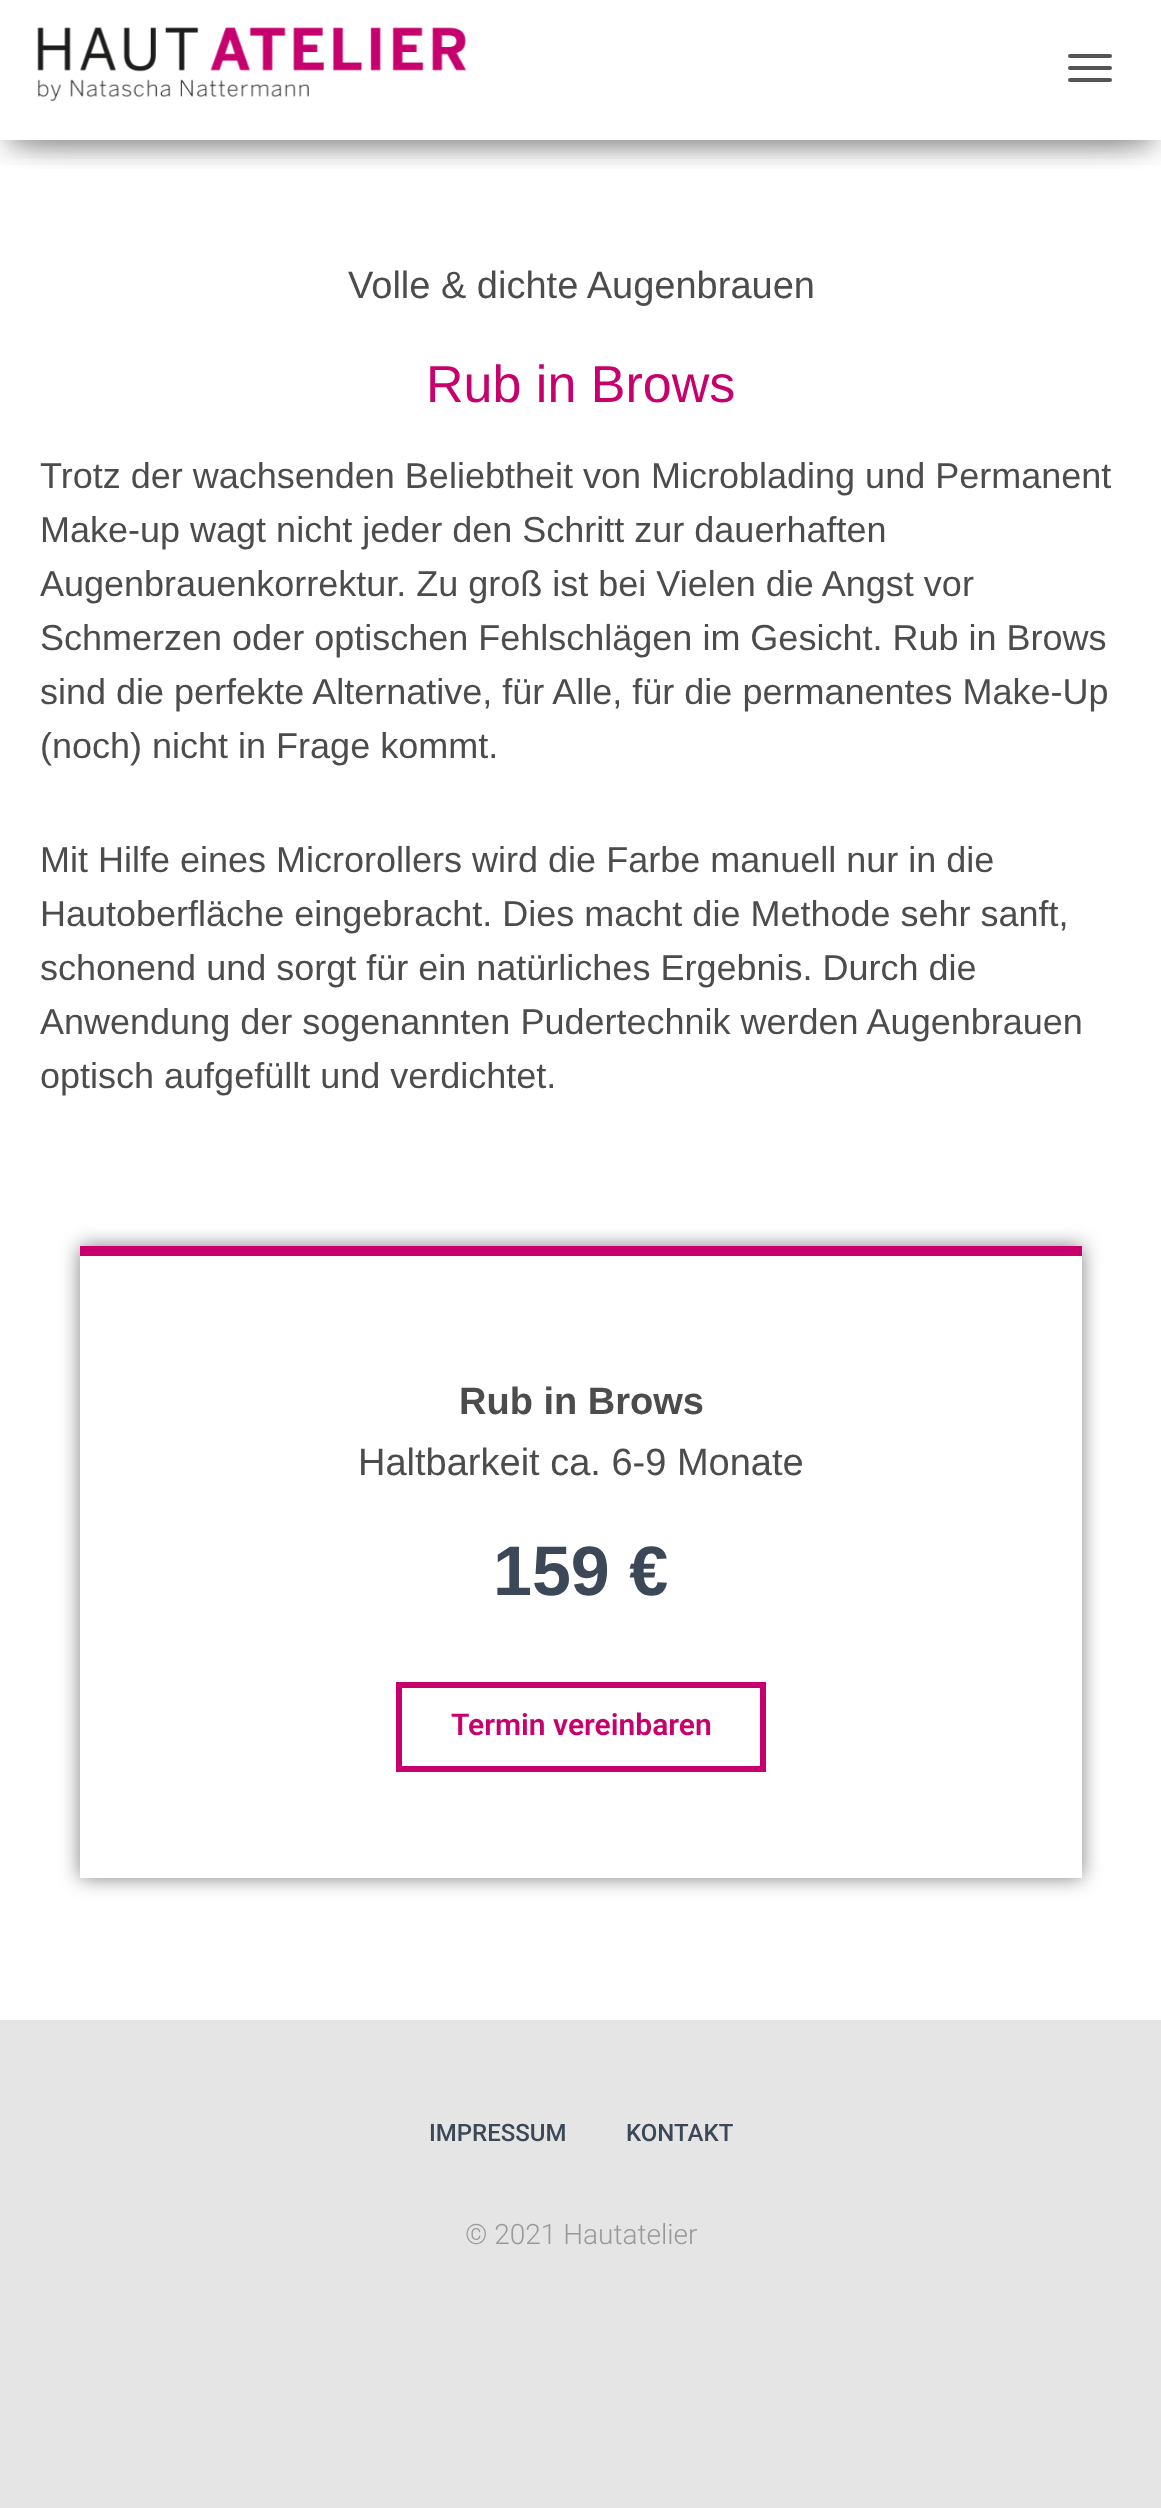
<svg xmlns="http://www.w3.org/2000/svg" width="1161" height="2508">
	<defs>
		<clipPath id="clip1"><rect x="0" y="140" width="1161" height="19" /></clipPath>
		<clipPath id="clip2"><rect x="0" y="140" width="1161" height="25" /></clipPath>
		<clipPath id="clip3"><rect x="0" y="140" width="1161" height="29" /></clipPath>
		<clipPath id="clip4"><path d="M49 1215H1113V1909H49ZM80 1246H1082V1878H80Z" clip-rule="evenodd" /></clipPath>
	</defs>
	<rect width="100%" height="100%" fill="#E5E5E5" />
	<rect x="0" y="0" width="1161" height="2020" fill="#FFFFFF" />
	<g clip-path="url(#clip1)">
		<rect x="10" y="26" width="1142" height="120" fill="#000000" fill-opacity="0.2" filter="blur(10px)" />
	</g>
	<g clip-path="url(#clip2)">
		<rect x="0" y="6" width="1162" height="140" fill="#000000" fill-opacity="0.12" filter="blur(20px)" />
	</g>
	<g clip-path="url(#clip3)">
		<rect x="24" y="44" width="1114" height="92" fill="#000000" fill-opacity="0.42" filter="blur(20px)" />
	</g>
	<image x="37" y="27" width="429" height="74" href="assets/img1.png" />
	<rect x="1068" y="54" width="44" height="4" rx="2" fill="#555555" />
	<rect x="1068" y="66" width="44" height="4" rx="2" fill="#555555" />
	<rect x="1068" y="78" width="44" height="4" rx="2" fill="#555555" />
	<text x="348" y="298" font-family="Liberation Sans" font-size="38" fill="#4C4C4C">Volle &amp; dichte Augenbrauen</text>
	<text x="426" y="402" font-family="Liberation Sans" font-size="52" fill="#C7006E">Rub in Brows</text>
	<g font-family="Liberation Sans" font-size="36" fill="#4C4C4C">
		<text x="40" y="488">Trotz der wachsenden Beliebtheit von Microblading und Permanent</text>
		<text x="40" y="542">Make-up wagt nicht jeder den Schritt zur dauerhaften</text>
		<text x="40" y="596">Augenbrauenkorrektur. Zu groß ist bei Vielen die Angst vor</text>
		<text x="40" y="650">Schmerzen oder optischen Fehlschlägen im Gesicht. Rub in Brows</text>
		<text x="40" y="704">sind die perfekte Alternative, für Alle, für die permanentes Make-Up</text>
		<text x="40" y="758">(noch) nicht in Frage kommt.</text>
		<text x="40" y="872">Mit Hilfe eines Microrollers wird die Farbe manuell nur in die</text>
		<text x="40" y="926">Hautoberfläche eingebracht. Dies macht die Methode sehr sanft,</text>
		<text x="40" y="980">schonend und sorgt für ein natürliches Ergebnis. Durch die</text>
		<text x="40" y="1034">Anwendung der sogenannten Pudertechnik werden Augenbrauen</text>
		<text x="40" y="1088">optisch aufgefüllt und verdichtet.</text>
	</g>
	<g clip-path="url(#clip4)">
		<rect x="80" y="1246" width="1002" height="632" fill="#000000" fill-opacity="0.5" filter="blur(10px)" />
	</g>
	<rect x="80" y="1246" width="1002" height="10" fill="#C7006E" />
	<text x="459" y="1414" font-family="Liberation Sans" font-size="38" font-weight="700" fill="#4C4C4C">Rub in Brows</text>
	<text x="358" y="1475" font-family="Liberation Sans" font-size="38" fill="#4C4C4C">Haltbarkeit ca. 6-9 Monate</text>
	<text x="493" y="1595" font-family="Liberation Sans" font-size="70" font-weight="700" fill="#3C4858">159 €</text>
	<path d="M399 1685H763V1769H399Z" fill="none" stroke="#C7006E" stroke-width="6" />
	<text x="451" y="1735" font-family="Roboto" font-size="30" font-weight="600" fill="#C7006E">Termin vereinbaren</text>
	<g font-family="Roboto" font-size="24" font-weight="500" fill="#3C4858">
		<text x="429" y="2141">IMPRESSUM</text>
		<text x="626" y="2141">KONTAKT</text>
	</g>
	<text x="465" y="2244" font-family="Roboto" font-size="28" font-weight="300" fill="#999999">© 2021 Hautatelier</text>
</svg>
